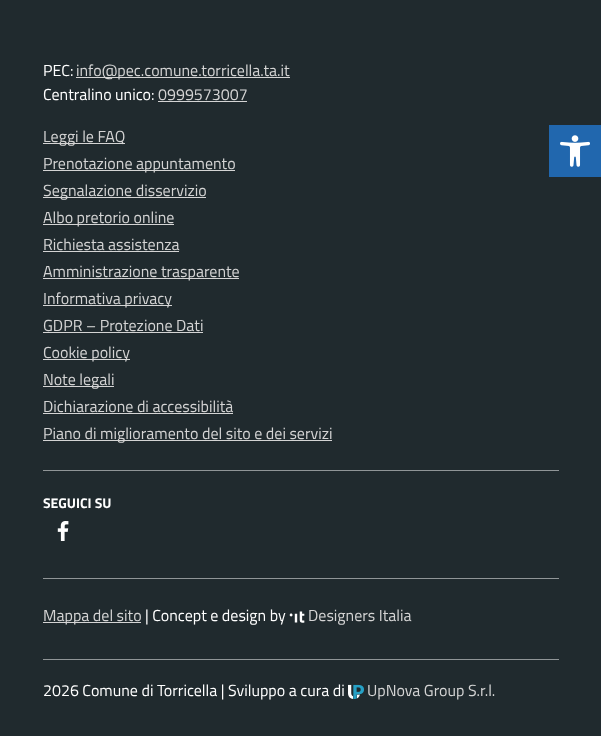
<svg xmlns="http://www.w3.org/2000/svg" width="601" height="736">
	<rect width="100%" height="100%" fill="#202A2E" />
	<text x="43" y="76" font-family="Titillium Web" font-size="16" fill="#FFFFFF">PEC:</text>
	<rect x="76" y="77" width="214" height="1" fill="#D4D4D4" />
	<text x="76" y="76" font-family="Titillium Web" font-size="16" fill="#D4D4D4">info@pec.comune.torricella.ta.it</text>
	<text x="43" y="100" font-family="Titillium Web" font-size="16" fill="#FFFFFF">Centralino unico:</text>
	<text x="158" y="100" font-family="Titillium Web" font-size="16" fill="#D4D4D4">0999573007</text>
	<rect x="158" y="101" width="89" height="1" fill="#D4D4D4" />
	<rect x="43" y="143" width="82" height="1" fill="#D4D4D4" />
	<text x="43" y="142" font-family="Titillium Web" font-size="16" fill="#D4D4D4">Leggi le FAQ</text>
	<rect x="43" y="170" width="192" height="1" fill="#D4D4D4" />
	<text x="43" y="169" font-family="Titillium Web" font-size="16" fill="#D4D4D4">Prenotazione appuntamento</text>
	<rect x="43" y="197" width="163" height="1" fill="#D4D4D4" />
	<text x="43" y="196" font-family="Titillium Web" font-size="16" fill="#D4D4D4">Segnalazione disservizio</text>
	<rect x="43" y="224" width="131" height="1" fill="#D4D4D4" />
	<g font-family="Titillium Web" font-size="16" fill="#D4D4D4">
		<text x="43" y="223">Albo pretorio online</text>
		<text x="43" y="250">Richiesta assistenza</text>
	</g>
	<rect x="43" y="251" width="136" height="1" fill="#D4D4D4" />
	<rect x="43" y="278" width="196" height="1" fill="#D4D4D4" />
	<text x="43" y="277" font-family="Titillium Web" font-size="16" fill="#D4D4D4">Amministrazione trasparente</text>
	<rect x="43" y="305" width="129" height="1" fill="#D4D4D4" />
	<g font-family="Titillium Web" font-size="16" fill="#D4D4D4">
		<text x="43" y="304">Informativa privacy</text>
		<text x="43" y="331">GDPR – Protezione Dati</text>
	</g>
	<rect x="43" y="332" width="160" height="1" fill="#D4D4D4" />
	<rect x="43" y="359" width="87" height="1" fill="#D4D4D4" />
	<text x="43" y="358" font-family="Titillium Web" font-size="16" fill="#D4D4D4">Cookie policy</text>
	<rect x="43" y="386" width="71" height="1" fill="#D4D4D4" />
	<g font-family="Titillium Web" font-size="16" fill="#D4D4D4">
		<text x="43" y="385">Note legali</text>
		<text x="43" y="412">Dichiarazione di accessibilità</text>
	</g>
	<rect x="43" y="413" width="190" height="1" fill="#D4D4D4" />
	<rect x="43" y="440" width="289" height="1" fill="#D4D4D4" />
	<text x="43" y="439" font-family="Titillium Web" font-size="16" fill="#D4D4D4">Piano di miglioramento del sito e dei servizi</text>
	<rect x="43" y="470" width="516" height="1" fill="#909597" />
	<text x="43" y="508" font-family="Titillium Web" font-size="14" font-weight="700" fill="#FFFFFF">SEGUICI SU</text>
	<image x="57" y="521" width="12" height="20" href="assets/img1.png" />
	<rect x="43" y="578" width="516" height="1" fill="#909597" />
	<rect x="43" y="622" width="98" height="1" fill="#D4D4D4" />
	<text x="43" y="621" font-family="Titillium Web" font-size="16" fill="#D4D4D4">Mappa del sito</text>
	<text x="145" y="621" font-family="Titillium Web" font-size="16" fill="#FFFFFF">| Concept e design by</text>
	<image x="289" y="611" width="16" height="12" href="assets/img2.png" />
	<text x="308" y="621" font-family="Titillium Web" font-size="16" fill="#D4D4D4">Designers Italia</text>
	<rect x="43" y="659" width="516" height="1" fill="#909597" />
	<text x="43" y="696" font-family="Titillium Web" font-size="16" fill="#FFFFFF">2026 Comune di Torricella | Sviluppo a cura di</text>
	<image x="348" y="684" width="16" height="16" href="assets/img3.png" />
	<text x="367" y="696" font-family="Titillium Web" font-size="16" fill="#D4D4D4">UpNova Group S.r.l.</text>
	<rect x="549" y="125" width="52" height="52" fill="#2167AE" />
	<image x="560" y="135" width="30" height="32" href="assets/img4.png" />
</svg>
